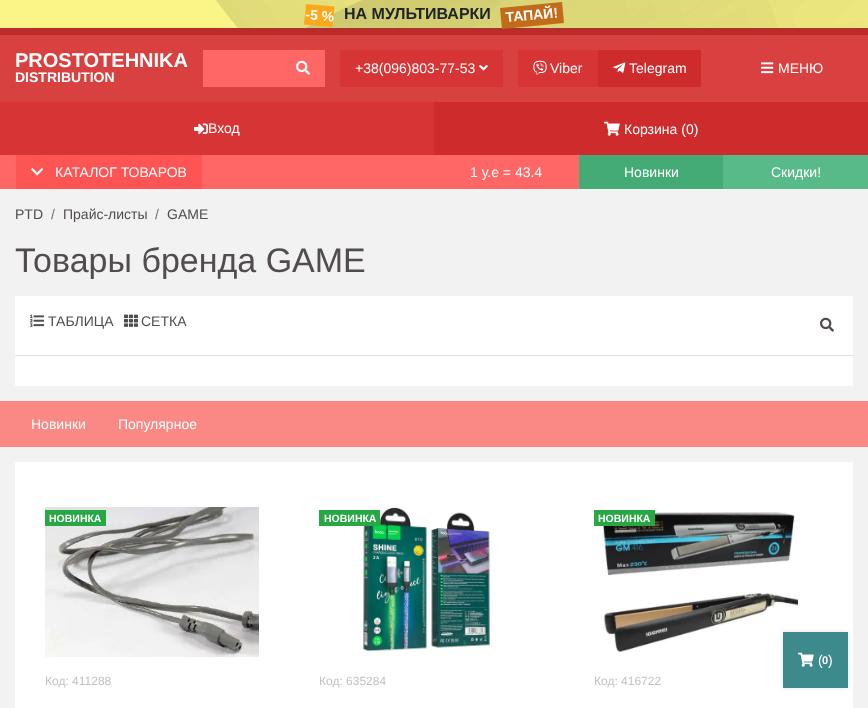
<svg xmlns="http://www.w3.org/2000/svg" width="868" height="708">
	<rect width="100%" height="100%" fill="#F2F2F2" />
	<rect x="0" y="0" width="868" height="28" fill="#FBF587" />
	<image x="0" y="0" width="868" height="35" href="assets/img1.png" />
	<path d="M306 4L334.5 6.5L332.5 27L304 24.5Z" fill="#FAA91C" />
	<text x="305" y="19" transform="rotate(5 305 19)" font-family="Liberation Sans" font-size="14" font-weight="700" fill="#FFFFFF">-5 %</text>
	<text x="344" y="19" font-family="Liberation Sans" font-size="16" font-weight="700" fill="#212529">НА МУЛЬТИВАРКИ</text>
	<path d="M500 8L562 2L564 23L502 29Z" fill="#C26C19" />
	<text x="506" y="22" transform="rotate(-5 506 22)" font-family="Liberation Sans" font-size="14" font-weight="700" fill="#FFFFFF">ТАПАЙ!</text>
	<rect x="0" y="35" width="868" height="67" fill="#D94141" />
	<text x="15" y="67" font-family="Liberation Sans" font-size="20" font-weight="700" fill="#FFFFFF">PROSTOTEHNIKA</text>
	<text x="15" y="82" font-family="Liberation Sans" font-size="14" font-weight="700" fill="#FFFFFF">DISTRIBUTION</text>
	<rect x="203" y="50" width="122" height="37" fill="#FF6666" />
	<image x="296" y="60" width="14" height="15" href="assets/img2.png" />
	<rect x="340" y="50" width="163" height="37" fill="#D73535" />
	<text x="355" y="73" font-family="Liberation Sans" font-size="14" fill="#FFFFFF">+38(096)803-77-53</text>
	<image x="479" y="65" width="9" height="6" href="assets/img3.png" />
	<rect x="518" y="50" width="80" height="37" fill="#D73535" />
	<image x="533" y="60" width="14" height="15" href="assets/img4.png" />
	<text x="550" y="73" font-family="Liberation Sans" font-size="14" fill="#FFFFFF">Viber</text>
	<rect x="598" y="50" width="103" height="37" fill="#CE2C2C" />
	<image x="613" y="62" width="13" height="11" href="assets/img5.png" />
	<text x="629" y="73" font-family="Liberation Sans" font-size="14" fill="#FFFFFF">Telegram</text>
	<image x="761" y="62" width="13" height="12" href="assets/img6.png" />
	<text x="778" y="73" font-family="Liberation Sans" font-size="14" fill="#FFFFFF">МЕНЮ</text>
	<rect x="0" y="102" width="434" height="53" fill="#D73535" />
	<image x="194" y="123" width="14" height="12" href="assets/img7.png" />
	<text x="208" y="133" font-family="Liberation Sans" font-size="14" fill="#FFFFFF">Вход</text>
	<rect x="434" y="102" width="434" height="53" fill="#CE2C2C" />
	<image x="604" y="121" width="16" height="15" href="assets/img8.png" />
	<text x="624" y="134" font-family="Liberation Sans" font-size="14" fill="#FFFFFF">Корзина (0)</text>
	<rect x="0" y="155" width="579" height="34" fill="#FF6666" />
	<rect x="16" y="155" width="186" height="34" fill="#FF5454" />
	<image x="31" y="168" width="12" height="8" href="assets/img9.png" />
	<g font-family="Liberation Sans" font-size="14" fill="#FFFFFF">
		<text x="55" y="177">КАТАЛОГ ТОВАРОВ</text>
		<text x="470" y="177">1 у.е = 43.4</text>
	</g>
	<rect x="579" y="155" width="144" height="34" fill="#44AB76" />
	<text x="624" y="177" font-family="Liberation Sans" font-size="14" fill="#FFFFFF">Новинки</text>
	<rect x="723" y="155" width="145" height="34" fill="#58BA88" />
	<text x="771" y="177" font-family="Liberation Sans" font-size="14" fill="#FFFFFF">Скидки!</text>
	<text x="15" y="219" font-family="Liberation Sans" font-size="14" fill="#524C4C">PTD</text>
	<text x="51" y="219" font-family="Liberation Sans" font-size="14" fill="#6C757D">/</text>
	<text x="63" y="219" font-family="Liberation Sans" font-size="14" fill="#524C4C">Прайс-листы</text>
	<text x="155" y="219" font-family="Liberation Sans" font-size="14" fill="#6C757D">/</text>
	<text x="167" y="219" font-family="Liberation Sans" font-size="14" fill="#524C4C">GAME</text>
	<text x="15" y="272" font-family="Liberation Sans" font-size="34" fill="#524C4C">Товары бренда GAME</text>
	<rect x="15" y="296" width="838" height="90" fill="#FFFFFF" />
	<rect x="15" y="355" width="838" height="1" fill="#DEE2E6" />
	<image x="30" y="314" width="15" height="13" href="assets/img10.png" />
	<text x="48" y="326" font-family="Liberation Sans" font-size="14" fill="#524C4C">ТАБЛИЦА</text>
	<image x="124" y="314" width="14" height="13" href="assets/img11.png" />
	<text x="141" y="326" font-family="Liberation Sans" font-size="14" fill="#524C4C">СЕТКА</text>
	<image x="820" y="317" width="14" height="15" href="assets/img12.png" />
	<rect x="0" y="401" width="868" height="46" fill="#FA8884" />
	<g font-family="Liberation Sans" font-size="14" fill="#FFFFFF">
		<text x="31" y="429">Новинки</text>
		<text x="118" y="429">Популярное</text>
	</g>
	<rect x="15" y="462" width="838" height="246" fill="#FFFFFF" />
	<image x="45" y="507" width="214" height="150" href="assets/img13.png" />
	<rect x="45" y="510" width="61" height="16" fill="#28A745" />
	<text x="49" y="522" font-family="Liberation Sans" font-size="10.5" font-weight="700" fill="#FFFFFF">НОВИНКА</text>
	<text x="45" y="685" font-family="Liberation Sans" font-size="12" fill="#C2C2C2">Код: 411288</text>
	<image x="363" y="507" width="128" height="145" href="assets/img14.png" />
	<rect x="319" y="510" width="61" height="16" fill="#28A745" />
	<text x="324" y="522" font-family="Liberation Sans" font-size="10.5" font-weight="700" fill="#FFFFFF">НОВИНКА</text>
	<text x="319" y="685" font-family="Liberation Sans" font-size="12" fill="#C2C2C2">Код: 635284</text>
	<image x="603" y="512" width="195" height="141" href="assets/img15.png" />
	<rect x="594" y="510" width="61" height="16" fill="#28A745" />
	<text x="598" y="522" font-family="Liberation Sans" font-size="10.5" font-weight="700" fill="#FFFFFF">НОВИНКА</text>
	<text x="594" y="685" font-family="Liberation Sans" font-size="12" fill="#C2C2C2">Код: 416722</text>
	<rect x="783" y="632" width="65" height="56" fill="#212529" fill-opacity="0.12" filter="blur(2.5px)" />
	<rect x="783" y="632" width="65" height="56" fill="#3D8A8C" />
	<image x="798" y="652" width="16" height="15" href="assets/img16.png" />
	<text x="818" y="665" font-family="Liberation Sans" font-size="14" fill="#FFFFFF">(</text>
	<text x="822" y="664" font-family="Liberation Sans" font-size="11" font-weight="700" fill="#FFFFFF">0</text>
	<text x="828" y="665" font-family="Liberation Sans" font-size="14" fill="#FFFFFF">)</text>
</svg>
